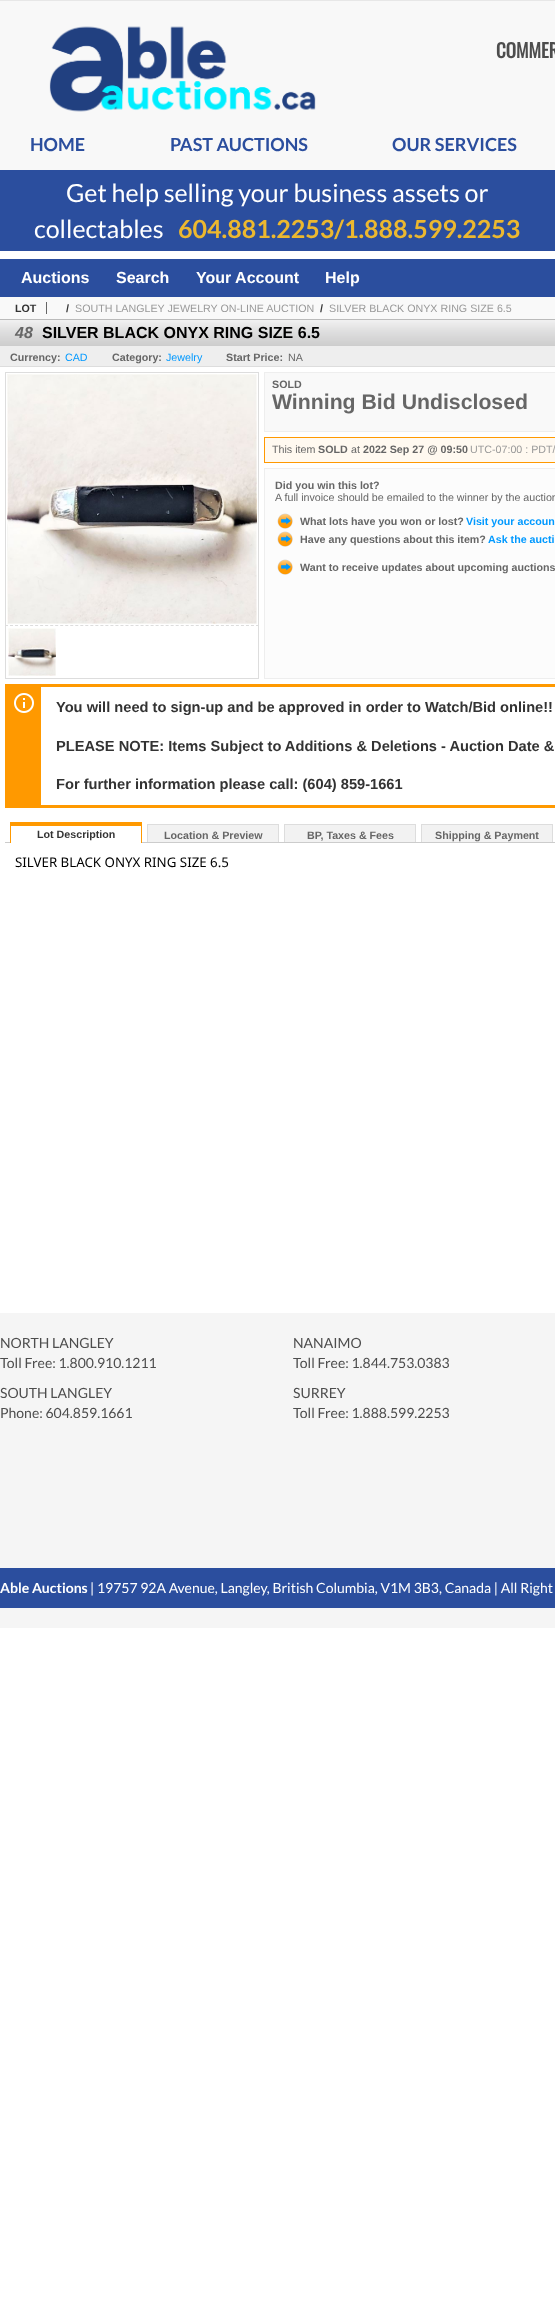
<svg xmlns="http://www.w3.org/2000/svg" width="555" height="2316">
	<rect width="100%" height="100%" fill="#FFFFFF" />
	<rect x="0" y="1" width="555" height="169" fill="#F8F8F8" />
	<rect x="0" y="0" width="555" height="1" fill="#E7E7E7" />
	<image x="49" y="26" width="267" height="86" href="assets/img1.png" />
	<text x="496" y="58" font-family="Oswald" font-size="19" font-weight="700" fill="#4D4D4D">COMMER</text>
	<g font-family="Lato" font-size="18" font-weight="700" fill="#2B4E9E">
		<text x="30" y="151">HOME</text>
		<text x="170" y="151">PAST AUCTIONS</text>
		<text x="392" y="151">OUR SERVICES</text>
	</g>
	<rect x="0" y="170" width="555" height="81" fill="#2B4E9E" />
	<g font-family="Lato" font-size="25" fill="#FFFFFF">
		<text x="66" y="202">Get help selling your business assets or</text>
		<text x="34" y="238">collectables</text>
	</g>
	<text x="178" y="238" font-family="Lato" font-size="25" font-weight="700" fill="#ECB82F">604.881.2253/1.888.599.2253</text>
	<rect x="0" y="259" width="555" height="38" fill="#2B4E9E" />
	<g font-family="Liberation Sans" font-size="16" font-weight="700" fill="#FFFFFF">
		<text x="21" y="283">Auctions</text>
		<text x="116" y="283">Search</text>
		<text x="196" y="283">Your Account</text>
		<text x="325" y="283">Help</text>
	</g>
	<rect x="0" y="297" width="555" height="22" fill="#F9F9F9" />
	<rect x="0" y="319" width="555" height="1" fill="#BBBBBB" />
	<text x="15" y="312" font-family="Liberation Sans" font-size="10.7" font-weight="700" fill="#333333">LOT</text>
	<rect x="46" y="302" width="1" height="12" fill="#666666" />
	<text x="66" y="312" font-family="Liberation Sans" font-size="10.7" font-weight="700" fill="#333333">/</text>
	<text x="75" y="312" font-family="Liberation Sans" font-size="10.7" fill="#999999">SOUTH LANGLEY JEWELRY ON-LINE AUCTION</text>
	<text x="320" y="312" font-family="Liberation Sans" font-size="10.7" font-weight="700" fill="#333333">/</text>
	<text x="329" y="312" font-family="Liberation Sans" font-size="10.7" fill="#999999">SILVER BLACK ONYX RING SIZE 6.5</text>
	<image x="0" y="320" width="555" height="26" href="assets/img2.png" />
	<text x="15" y="338" font-family="Liberation Sans" font-size="16" font-weight="700" font-style="italic" fill="#666666">48</text>
	<text x="42" y="338" font-family="Liberation Sans" font-size="16" font-weight="700" fill="#000000">SILVER BLACK ONYX RING SIZE 6.5</text>
	<rect x="0" y="346" width="555" height="20" fill="#EEEEEE" />
	<rect x="0" y="366" width="555" height="1" fill="#DDDDDD" />
	<text x="10" y="361" font-family="Liberation Sans" font-size="10.7" font-weight="700" fill="#666666">Currency:</text>
	<text x="65" y="361" font-family="Liberation Sans" font-size="10.7" fill="#0099FF">CAD</text>
	<text x="112" y="361" font-family="Liberation Sans" font-size="10.7" font-weight="700" fill="#666666">Category:</text>
	<text x="166" y="361" font-family="Liberation Sans" font-size="10.7" fill="#0099FF">Jewelry</text>
	<text x="226" y="361" font-family="Liberation Sans" font-size="10.7" font-weight="700" fill="#666666">Start Price:</text>
	<text x="288" y="361" font-family="Liberation Sans" font-size="10.7" fill="#666666">NA</text>
	<rect x="5" y="372" width="254" height="1" fill="#DDDDDD" />
	<rect x="258" y="372" width="1" height="253" fill="#DDDDDD" />
	<rect x="5" y="372" width="1" height="253" fill="#DDDDDD" />
	<image x="7" y="374" width="250" height="250" href="assets/img3.png" />
	<path d="M5 625.5H259" fill="none" stroke="#DDDDDD" stroke-dasharray="3 2.02" />
	<rect x="258" y="625" width="1" height="54" fill="#DDDDDD" />
	<rect x="5" y="678" width="254" height="1" fill="#DDDDDD" />
	<rect x="5" y="625" width="1" height="54" fill="#DDDDDD" />
	<image x="8" y="628" width="48" height="48" href="assets/img4.png" />
	<rect x="264.5" y="372.5" width="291" height="59" fill="#F9F9F9" stroke="#EEEEEE" />
	<text x="272" y="388" font-family="Liberation Sans" font-size="10.7" font-weight="700" fill="#666666">SOLD</text>
	<text x="272" y="409" font-family="Liberation Sans" font-size="21.25" font-weight="700" fill="#666666">Winning Bid Undisclosed</text>
	<rect x="264.5" y="437.5" width="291" height="25" fill="#FFF9F0" stroke="#FF9900" />
	<text x="272" y="453" font-family="Liberation Sans" font-size="10.7" fill="#666666">This item</text>
	<text x="318" y="453" font-family="Liberation Sans" font-size="10.7" font-weight="700" fill="#666666">SOLD</text>
	<text x="351" y="453" font-family="Liberation Sans" font-size="10.7" fill="#666666">at</text>
	<text x="363" y="453" font-family="Liberation Sans" font-size="10.7" font-weight="700" fill="#666666">2022 Sep 27 @ 09:50</text>
	<text x="470" y="453" font-family="Liberation Sans" font-size="10.7" fill="#999999">UTC-07:00 : PDT/</text>
	<rect x="264.5" y="468.5" width="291" height="210" fill="#FCFCFC" stroke="#EEEEEE" />
	<text x="275" y="489" font-family="Liberation Sans" font-size="10.7" font-weight="700" fill="#666666">Did you win this lot?</text>
	<text x="275" y="501" font-family="Liberation Sans" font-size="10.7" fill="#666666">A full invoice should be emailed to the winner by the auction</text>
	<image x="277" y="513" width="16" height="16" href="assets/img5.png" />
	<text x="300" y="525" font-family="Liberation Sans" font-size="10.7" font-weight="700" fill="#666666">What lots have you won or lost?</text>
	<text x="466" y="525" font-family="Liberation Sans" font-size="10.7" font-weight="700" fill="#0099FF">Visit your accoun</text>
	<image x="277" y="531" width="16" height="16" href="assets/img5.png" />
	<text x="300" y="543" font-family="Liberation Sans" font-size="10.7" font-weight="700" fill="#666666">Have any questions about this item?</text>
	<text x="488" y="543" font-family="Liberation Sans" font-size="10.7" font-weight="700" fill="#0099FF">Ask the aucti</text>
	<image x="277" y="559" width="16" height="16" href="assets/img5.png" />
	<text x="300" y="571" font-family="Liberation Sans" font-size="10.7" font-weight="700" fill="#666666">Want to receive updates about upcoming auctions</text>
	<rect x="41" y="684" width="514" height="3" fill="#FF9900" />
	<rect x="41" y="805" width="514" height="3" fill="#FF9900" />
	<rect x="5" y="684" width="36" height="124" fill="#FF9900" />
	<image x="14" y="693" width="20" height="20" href="assets/img6.png" />
	<g font-family="Liberation Sans" font-size="14.65" font-weight="700" fill="#333333">
		<text x="56" y="712">You will need to sign-up and be approved in order to Watch/Bid online!!</text>
		<text x="56" y="751">PLEASE NOTE: Items Subject to Additions &amp; Deletions - Auction Date &amp;</text>
		<text x="56" y="789">For further information please call: (604) 859-1661</text>
	</g>
	<rect x="5" y="842" width="550" height="1" fill="#CCCCCC" />
	<rect x="11" y="842" width="130" height="1" fill="#FFFFFF" />
	<rect x="10" y="822" width="132" height="4" fill="#FF9900" />
	<rect x="141" y="822" width="1" height="21" fill="#FF9900" />
	<rect x="10" y="822" width="1" height="21" fill="#FF9900" />
	<text x="37" y="838" font-family="Liberation Sans" font-size="10.7" font-weight="700" fill="#333333">Lot Description</text>
	<rect x="148" y="825" width="130" height="17" fill="#F2F2F2" />
	<rect x="147" y="824" width="132" height="1" fill="#DDDDDD" />
	<rect x="278" y="824" width="1" height="18" fill="#DDDDDD" />
	<rect x="147" y="824" width="1" height="18" fill="#DDDDDD" />
	<text x="164" y="839" font-family="Liberation Sans" font-size="10.7" font-weight="700" fill="#666666">Location &amp; Preview</text>
	<rect x="285" y="825" width="130" height="17" fill="#F2F2F2" />
	<rect x="284" y="824" width="132" height="1" fill="#DDDDDD" />
	<rect x="415" y="824" width="1" height="18" fill="#DDDDDD" />
	<rect x="284" y="824" width="1" height="18" fill="#DDDDDD" />
	<text x="307" y="839" font-family="Liberation Sans" font-size="10.7" font-weight="700" fill="#666666">BP, Taxes &amp; Fees</text>
	<rect x="422" y="825" width="130" height="17" fill="#F2F2F2" />
	<rect x="421" y="824" width="132" height="1" fill="#DDDDDD" />
	<rect x="552" y="824" width="1" height="18" fill="#DDDDDD" />
	<rect x="421" y="824" width="1" height="18" fill="#DDDDDD" />
	<text x="435" y="839" font-family="Liberation Sans" font-size="10.7" font-weight="700" fill="#666666">Shipping &amp; Payment</text>
	<text x="15" y="867" font-family="Noto Sans" font-size="13.3" fill="#000000">SILVER BLACK ONYX RING SIZE 6.5</text>
	<rect x="0" y="1313" width="555" height="315" fill="#F5F5F5" />
	<g font-family="Lato" font-size="14" fill="#4D4D4D">
		<text x="0" y="1348">NORTH LANGLEY</text>
		<text x="0" y="1368">Toll Free: 1.800.910.1211</text>
		<text x="0" y="1398">SOUTH LANGLEY</text>
		<text x="0" y="1418">Phone: 604.859.1661</text>
		<text x="293" y="1348">NANAIMO</text>
		<text x="293" y="1368">Toll Free: 1.844.753.0383</text>
		<text x="293" y="1398">SURREY</text>
		<text x="293" y="1418">Toll Free: 1.888.599.2253</text>
	</g>
	<rect x="0" y="1568" width="555" height="40" fill="#2B4E9E" />
	<text x="0" y="1593" font-family="Lato" font-size="14" font-weight="700" fill="#FFFFFF">Able Auctions</text>
	<text x="90" y="1593" font-family="Lato" font-size="14" fill="#FFFFFF">| 19757 92A Avenue, Langley, British Columbia, V1M 3B3, Canada | All Right</text>
</svg>
